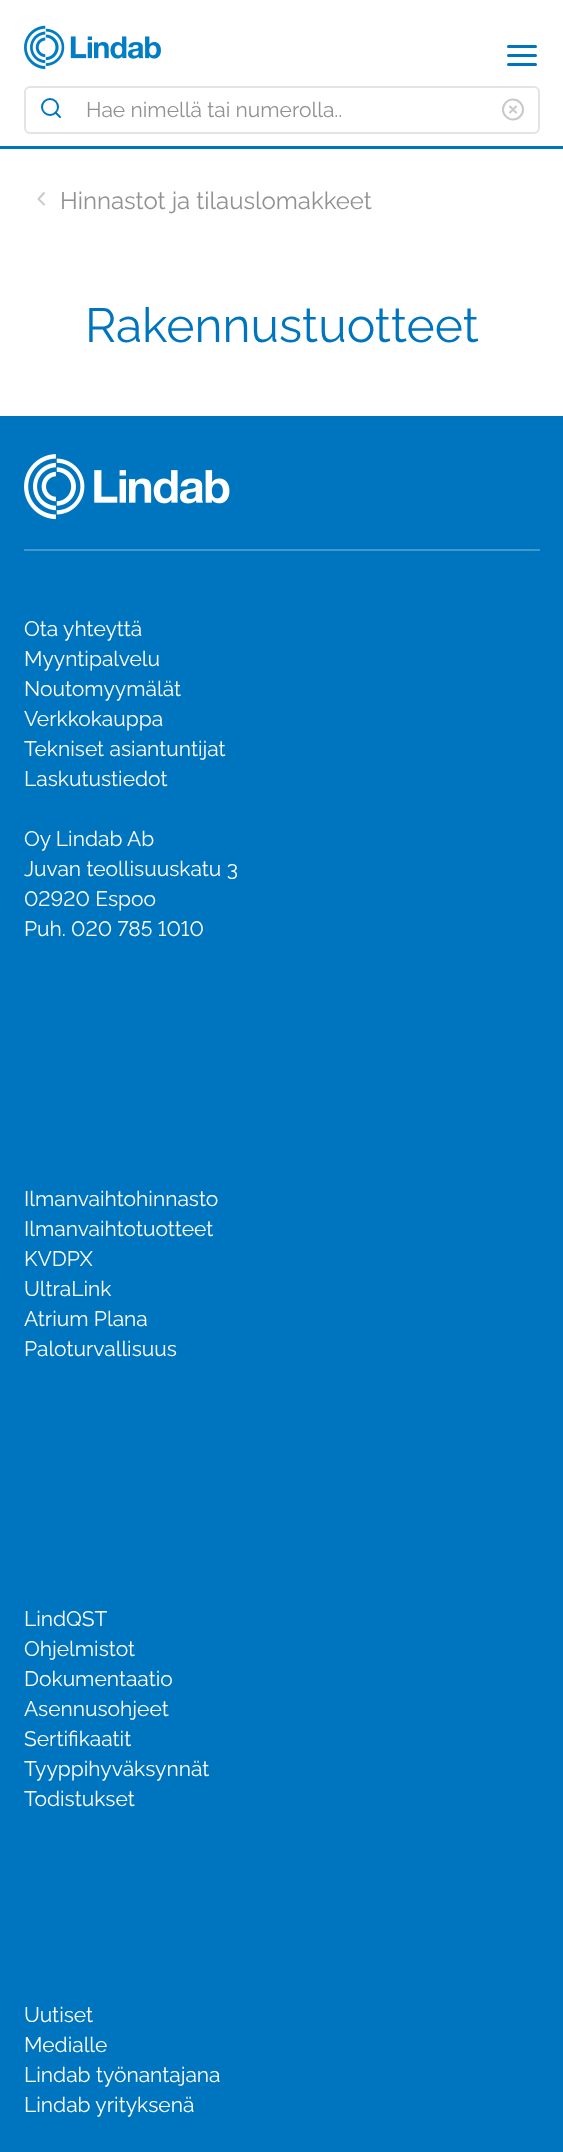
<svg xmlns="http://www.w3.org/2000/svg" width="563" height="2152">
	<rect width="100%" height="100%" fill="#FFFFFF" />
	<rect x="0" y="146" width="563" height="3" fill="#0075BF" />
	<image x="24" y="25" width="137" height="45" href="assets/img1.png" />
	<path d="M508.5 55.5H535.5M508.5 46.5H535.5M508.5 64.5H535.5" fill="none" stroke="#0075BF" stroke-width="3" stroke-linecap="round" stroke-linejoin="round" />
	<rect x="25" y="87" width="514" height="46" rx="5" fill="none" stroke="#E4E4E4" stroke-width="2" />
	<circle cx="50" cy="107" r="8" fill="none" stroke="#0075BF" stroke-width="2" />
	<path d="M60 117L55.5 112.5" fill="none" stroke="#0075BF" stroke-width="2" stroke-linecap="round" stroke-linejoin="round" />
	<text x="86" y="117" font-family="Raleway" font-size="21" font-weight="100" fill="#919191">Hae nimellä tai numerolla..</text>
	<circle cx="513" cy="109.5" r="10" fill="none" stroke="#C9C9C9" stroke-width="2" />
	<path d="M516 106.5L510 112.5M510 106.5L516 112.5" fill="none" stroke="#C9C9C9" stroke-width="2" stroke-linecap="round" stroke-linejoin="round" />
	<path d="M44 204.5L38.5 199L44 193" fill="none" stroke="#C9C9C9" stroke-width="1.9" stroke-linecap="round" stroke-linejoin="round" />
	<text x="60" y="209" font-family="Raleway" font-size="24" font-weight="100" fill="#919191">Hinnastot ja tilauslomakkeet</text>
	<text x="85" y="342" font-family="Raleway" font-size="48" font-weight="100" fill="#0075BF">Rakennustuotteet</text>
	<rect x="0" y="416" width="563" height="1736" fill="#0075BF" />
	<image x="24" y="454" width="206" height="66" href="assets/img2.png" />
	<rect x="24" y="549" width="516" height="2" fill="#4098CF" />
	<g font-family="Raleway" font-size="21" font-weight="100" fill="#FFFFFF">
		<text x="24" y="636">Ota yhteyttä</text>
		<text x="24" y="666">Myyntipalvelu</text>
		<text x="24" y="696">Noutomyymälät</text>
		<text x="24" y="726">Verkkokauppa</text>
		<text x="24" y="756">Tekniset asiantuntijat</text>
		<text x="24" y="786">Laskutustiedot</text>
		<text x="24" y="846">Oy Lindab Ab</text>
		<text x="24" y="876">Juvan teollisuuskatu 3</text>
	</g>
	<g font-family="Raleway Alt" font-size="21" font-weight="100" fill="#FFFFFF">
		<text x="24" y="906">02920 Espoo</text>
		<text x="24" y="936">Puh. 020 785 1010</text>
	</g>
	<g font-family="Raleway" font-size="21" font-weight="100" fill="#FFFFFF">
		<text x="24" y="1206">Ilmanvaihtohinnasto</text>
		<text x="24" y="1236">Ilmanvaihtotuotteet</text>
		<text x="24" y="1266">KVDPX</text>
		<text x="24" y="1296">UltraLink</text>
		<text x="24" y="1326">Atrium Plana</text>
		<text x="24" y="1356">Paloturvallisuus</text>
		<text x="24" y="1626">LindQST</text>
		<text x="24" y="1656">Ohjelmistot</text>
		<text x="24" y="1686">Dokumentaatio</text>
		<text x="24" y="1716">Asennusohjeet</text>
		<text x="24" y="1746">Sertifikaatit</text>
		<text x="24" y="1776">Tyyppihyväksynnät</text>
		<text x="24" y="1806">Todistukset</text>
		<text x="24" y="2022">Uutiset</text>
		<text x="24" y="2052">Medialle</text>
		<text x="24" y="2082">Lindab työnantajana</text>
		<text x="24" y="2112">Lindab yrityksenä</text>
	</g>
</svg>
